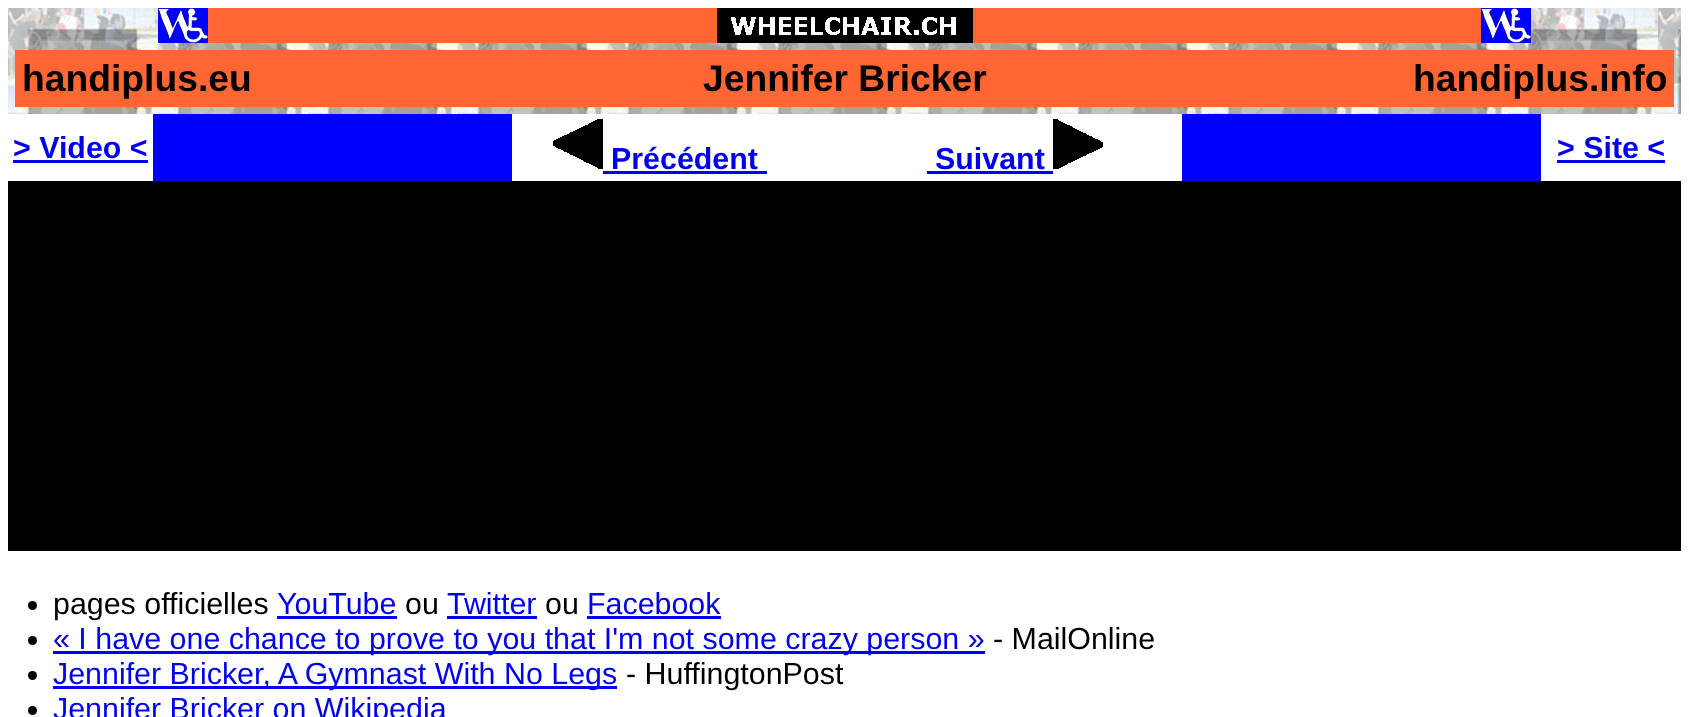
<svg xmlns="http://www.w3.org/2000/svg" width="1689" height="717">
	<rect width="100%" height="100%" fill="#FFFFFF" />
	<image x="8" y="8" width="1673" height="106" href="assets/img1.png" />
	<rect x="158" y="8" width="50" height="35" fill="#0000FF" />
	<image x="158" y="8" width="50" height="35" href="assets/img2.png" />
	<rect x="208" y="8" width="509" height="35" fill="#FF6633" />
	<image x="717" y="8" width="256" height="35" href="assets/img3.png" />
	<rect x="973" y="8" width="508" height="35" fill="#FF6633" />
	<rect x="1481" y="8" width="50" height="35" fill="#0000FF" />
	<image x="1481" y="8" width="50" height="35" href="assets/img2.png" />
	<rect x="15" y="50" width="1659" height="57" fill="#FF6633" />
	<g font-family="Liberation Sans" font-size="37.25" font-weight="700" fill="#000000">
		<text x="22" y="91">handiplus.eu</text>
		<text x="703" y="91">Jennifer Bricker</text>
		<text x="1413" y="91">handiplus.info</text>
	</g>
	<text x="13" y="158" font-family="Liberation Sans" font-size="30.4" font-weight="700" fill="#0000EE">&gt; Video &lt;</text>
	<rect x="13" y="160" width="135" height="3" fill="#0000EE" />
	<rect x="153" y="114" width="359" height="67" fill="#0000FF" />
	<image x="553" y="119" width="50" height="50" href="assets/img4.png" />
	<text x="611" y="169" font-family="Liberation Sans" font-size="30.4" font-weight="700" fill="#0000EE">Précédent</text>
	<rect x="603" y="171" width="164" height="3" fill="#0000EE" />
	<text x="935" y="169" font-family="Liberation Sans" font-size="30.4" font-weight="700" fill="#0000EE">Suivant</text>
	<rect x="927" y="171" width="126" height="3" fill="#0000EE" />
	<image x="1053" y="119" width="50" height="50" href="assets/img5.png" />
	<rect x="1182" y="114" width="359" height="67" fill="#0000FF" />
	<text x="1557" y="158" font-family="Liberation Sans" font-size="30.4" font-weight="700" fill="#0000EE">&gt; Site &lt;</text>
	<rect x="1557" y="160" width="108" height="3" fill="#0000EE" />
	<rect x="8" y="181" width="1673" height="370" fill="#000000" />
	<circle cx="32.5" cy="605.5" r="4.5" fill="#000000" />
	<text x="53" y="614" font-family="Liberation Sans" font-size="30.4" fill="#000000">pages officielles</text>
	<text x="277" y="614" font-family="Liberation Sans" font-size="30.4" fill="#0000EE">YouTube</text>
	<rect x="277" y="616" width="120" height="3" fill="#0000EE" />
	<text x="405" y="614" font-family="Liberation Sans" font-size="30.4" fill="#000000">ou</text>
	<text x="447" y="614" font-family="Liberation Sans" font-size="30.4" fill="#0000EE">Twitter</text>
	<rect x="447" y="616" width="90" height="3" fill="#0000EE" />
	<text x="545" y="614" font-family="Liberation Sans" font-size="30.4" fill="#000000">ou</text>
	<text x="587" y="614" font-family="Liberation Sans" font-size="30.4" fill="#0000EE">Facebook</text>
	<rect x="587" y="616" width="134" height="3" fill="#0000EE" />
	<circle cx="32.5" cy="640.5" r="4.5" fill="#000000" />
	<rect x="53" y="651" width="932" height="3" fill="#0000EE" />
	<text x="53" y="649" font-family="Liberation Sans" font-size="30.4" fill="#0000EE">« I have one chance to prove to you that I'm not some crazy person »</text>
	<text x="993" y="649" font-family="Liberation Sans" font-size="30.4" fill="#000000">- MailOnline</text>
	<circle cx="32.5" cy="675.5" r="4.5" fill="#000000" />
	<rect x="53" y="686" width="564" height="3" fill="#0000EE" />
	<text x="53" y="684" font-family="Liberation Sans" font-size="30.4" fill="#0000EE">Jennifer Bricker, A Gymnast With No Legs</text>
	<text x="626" y="684" font-family="Liberation Sans" font-size="30.4" fill="#000000">- HuffingtonPost</text>
	<circle cx="32.5" cy="710.5" r="4.5" fill="#000000" />
	<text x="53" y="719" font-family="Liberation Sans" font-size="30.4" fill="#0000EE">Jennifer Bricker on Wikipedia</text>
</svg>
